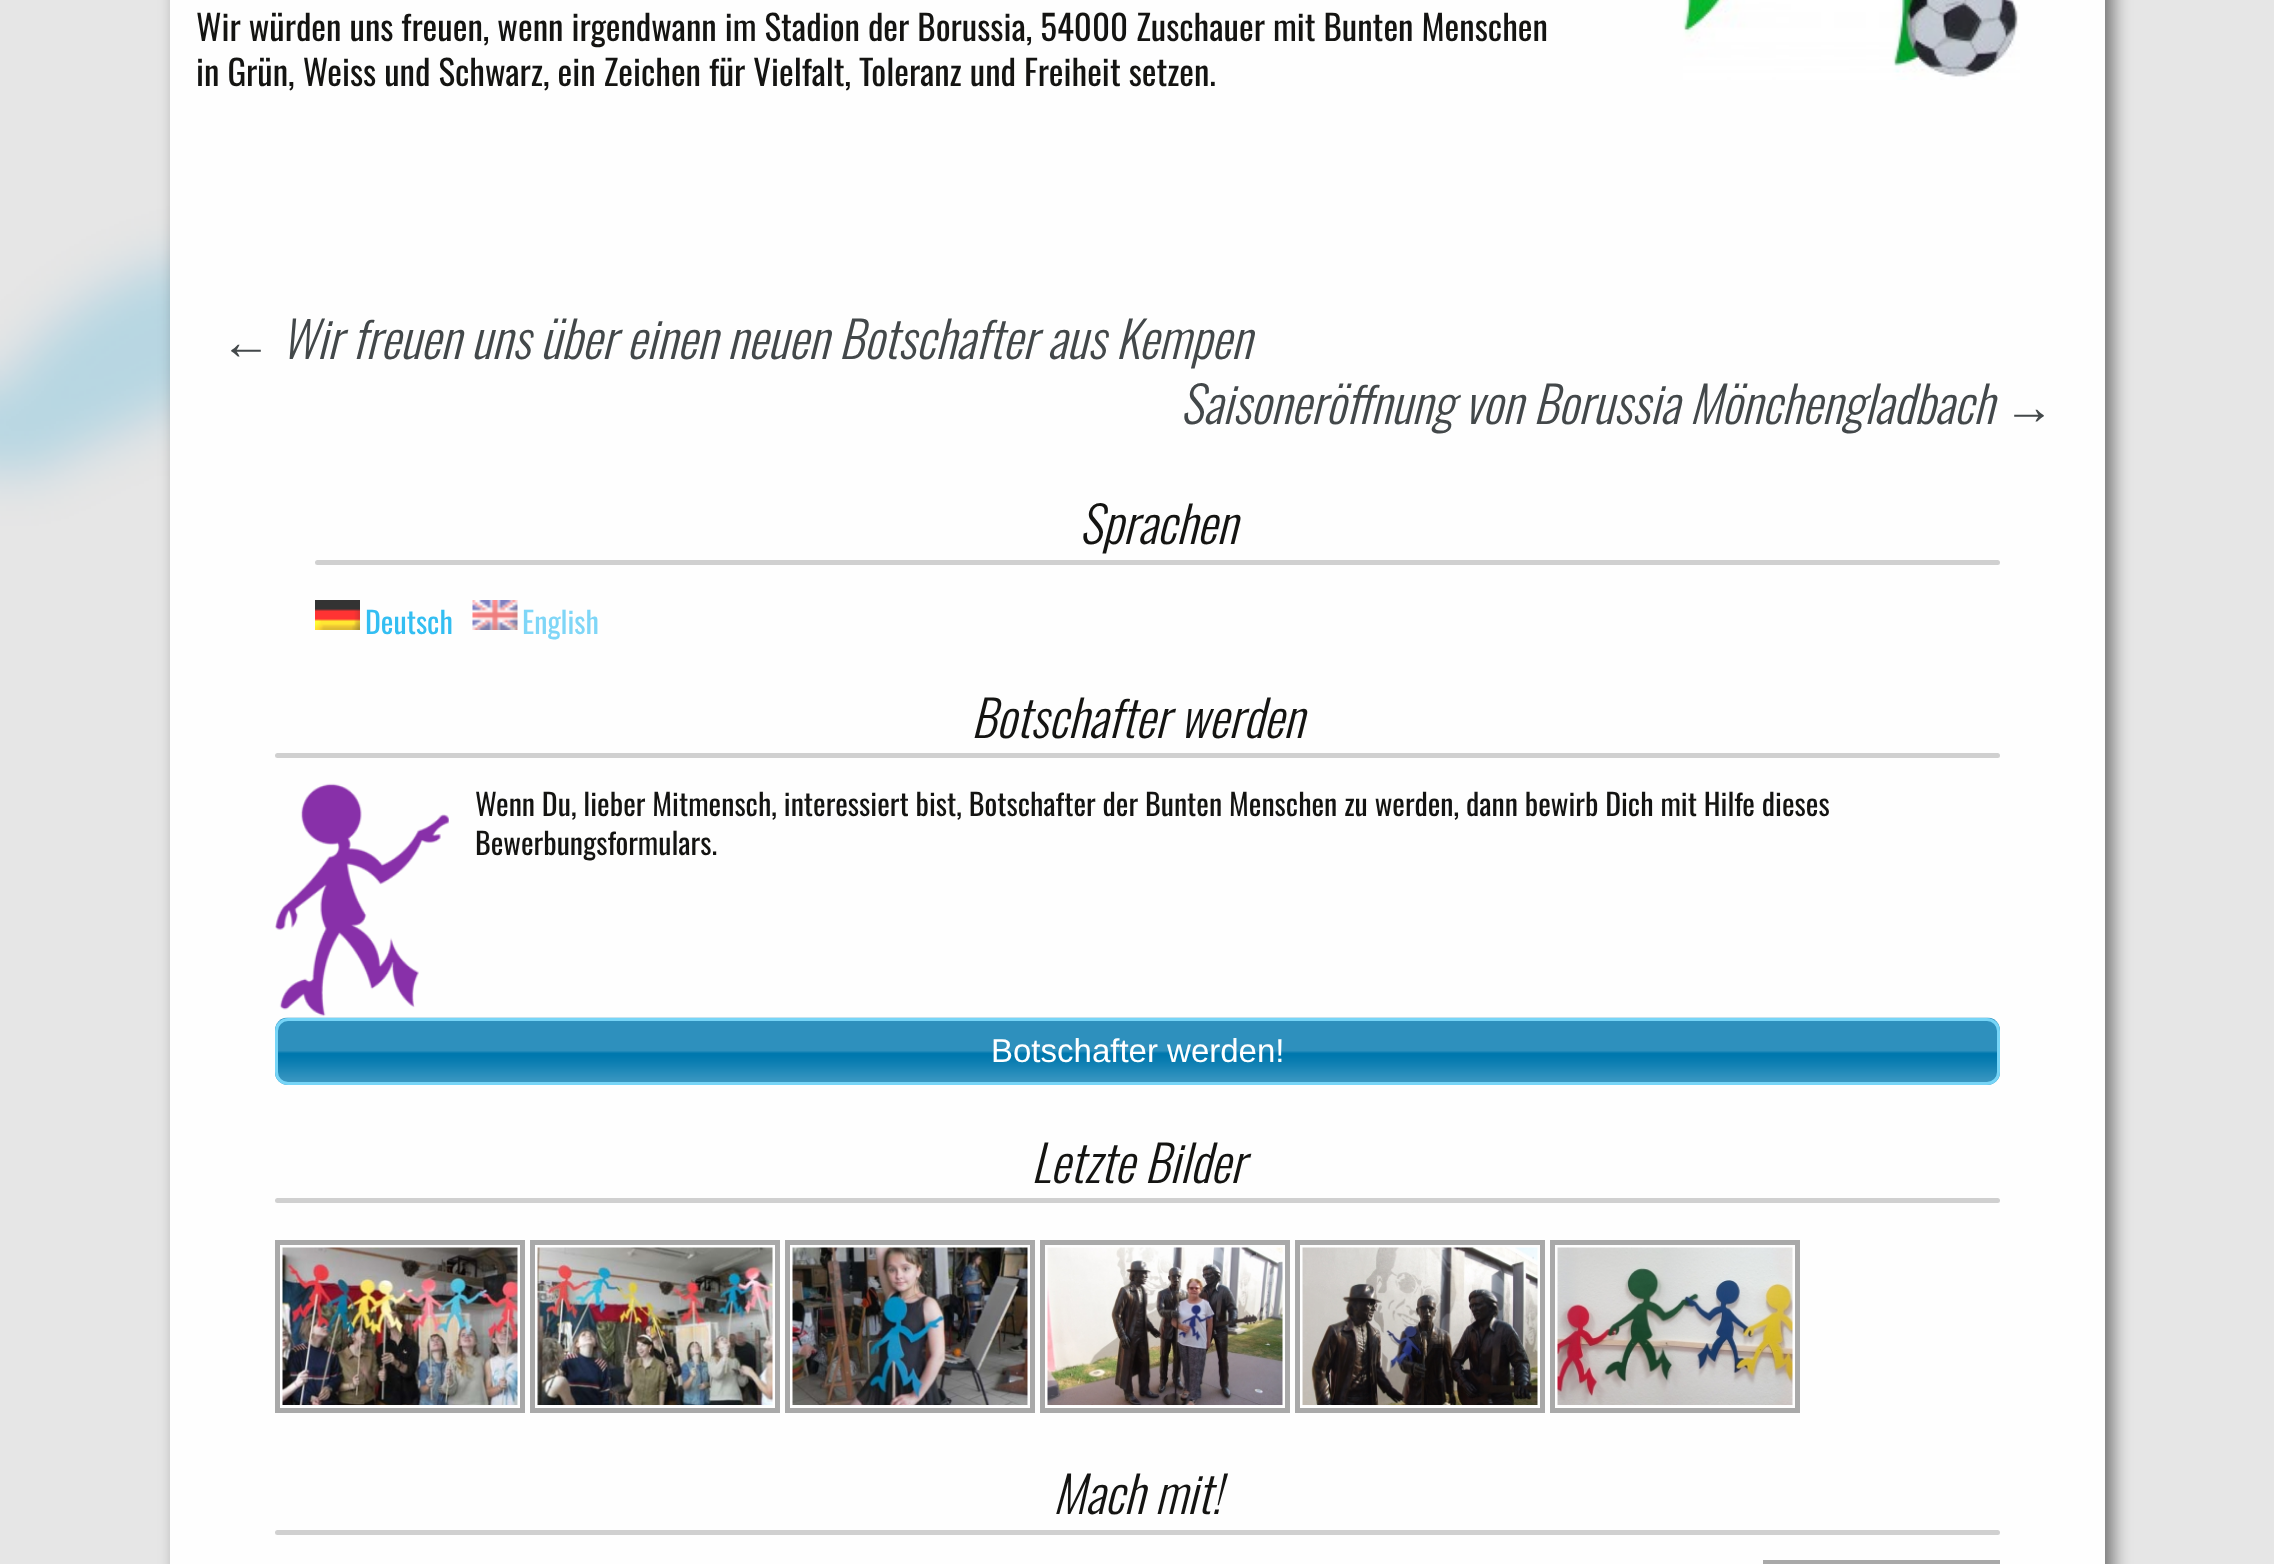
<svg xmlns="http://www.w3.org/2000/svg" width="2274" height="1564">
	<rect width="100%" height="100%" fill="#E6E6E6" />
	<image x="0" y="0" width="170" height="784" href="assets/img1.png" />
	<rect x="178" y="-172" width="1935" height="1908" rx="145" fill="#000000" fill-opacity="0.5" filter="blur(9px)" />
	<rect x="170" y="0" width="1935" height="1564" fill="#FEFEFE" />
	<g font-family="Oswald" font-size="35" fill="#141412">
		<text x="196" y="41">Wir würden uns freuen, wenn irgendwann im Stadion der Borussia, 54000 Zuschauer mit Bunten Menschen</text>
		<text x="196" y="86">in Grün, Weiss und Schwarz, ein Zeichen für Vielfalt, Toleranz und Freiheit setzen.</text>
	</g>
	<image x="1683" y="0" width="337" height="80" href="assets/img2.png" />
	<text x="221" y="359" font-family="Liberation Sans" font-size="50" font-style="italic" fill="#43484A">←</text>
	<g font-family="Oswald" font-size="50" font-weight="300" font-style="italic" fill="#43484A">
		<text x="281" y="359">Wir freuen uns über einen neuen Botschafter aus Kempen</text>
		<text x="1180" y="424">Saisoneröffnung von Borussia Mönchengladbach</text>
	</g>
	<text x="2004" y="424" font-family="Liberation Sans" font-size="50" font-style="italic" fill="#43484A">→</text>
	<text x="1079" y="544" font-family="Oswald" font-size="50" font-weight="300" font-style="italic" fill="#141412">Sprachen</text>
	<rect x="315" y="560" width="1685" height="5" rx="2.5" fill="#D0D0D0" />
	<image x="315" y="600" width="45" height="30" href="assets/img3.png" />
	<text x="365" y="634" font-family="Oswald" font-size="30" fill="#33BEF2">Deutsch</text>
	<image x="472" y="600" width="46" height="30" href="assets/img4.png" />
	<text x="522" y="634" font-family="Oswald" font-size="30" fill="#7FD6F7">English</text>
	<text x="971" y="738" font-family="Oswald" font-size="50" font-weight="300" font-style="italic" fill="#141412">Botschafter werden</text>
	<rect x="275" y="753" width="1725" height="5" rx="2.5" fill="#D0D0D0" />
	<image x="275" y="783" width="174" height="234" href="assets/img5.png" />
	<g font-family="Oswald" font-size="30" fill="#141412">
		<text x="475" y="816">Wenn Du, lieber Mitmensch, interessiert bist, Botschafter der Bunten Menschen zu werden, dann bewirb Dich mit Hilfe dieses</text>
		<text x="475" y="855">Bewerbungsformulars.</text>
	</g>
	<image x="275" y="1017" width="1725" height="68" href="assets/img6.png" />
	<rect x="276.5" y="1019.5" width="1722" height="64" rx="11.5" fill="none" stroke="#77D5F7" stroke-width="3" />
	<text x="991" y="1062" font-family="Liberation Sans" font-size="33" fill="#FFFFFF">Botschafter werden!</text>
	<text x="1031" y="1183" font-family="Oswald" font-size="50" font-weight="300" font-style="italic" fill="#141412">Letzte Bilder</text>
	<rect x="275" y="1198" width="1725" height="5" rx="2.5" fill="#D0D0D0" />
	<rect x="277.5" y="1242.5" width="245" height="168" fill="none" stroke="#A9A9A9" stroke-width="5" />
	<image x="282" y="1247" width="236" height="158" href="assets/img7.png" />
	<rect x="532.5" y="1242.5" width="245" height="168" fill="none" stroke="#A9A9A9" stroke-width="5" />
	<image x="537" y="1247" width="236" height="158" href="assets/img8.png" />
	<rect x="787.5" y="1242.5" width="245" height="168" fill="none" stroke="#A9A9A9" stroke-width="5" />
	<image x="792" y="1247" width="236" height="158" href="assets/img9.png" />
	<rect x="1042.5" y="1242.5" width="245" height="168" fill="none" stroke="#A9A9A9" stroke-width="5" />
	<image x="1047" y="1247" width="236" height="158" href="assets/img10.png" />
	<rect x="1297.5" y="1242.5" width="245" height="168" fill="none" stroke="#A9A9A9" stroke-width="5" />
	<image x="1302" y="1247" width="236" height="158" href="assets/img11.png" />
	<rect x="1552.5" y="1242.5" width="245" height="168" fill="none" stroke="#A9A9A9" stroke-width="5" />
	<image x="1557" y="1247" width="236" height="158" href="assets/img12.png" />
	<text x="1053" y="1514" font-family="Oswald" font-size="50" font-weight="300" font-style="italic" fill="#141412">Mach mit!</text>
	<rect x="275" y="1530" width="1725" height="5" rx="2.5" fill="#D0D0D0" />
	<rect x="1765.5" y="1562.5" width="232" height="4" fill="none" stroke="#A9A9A9" stroke-width="5" />
</svg>
